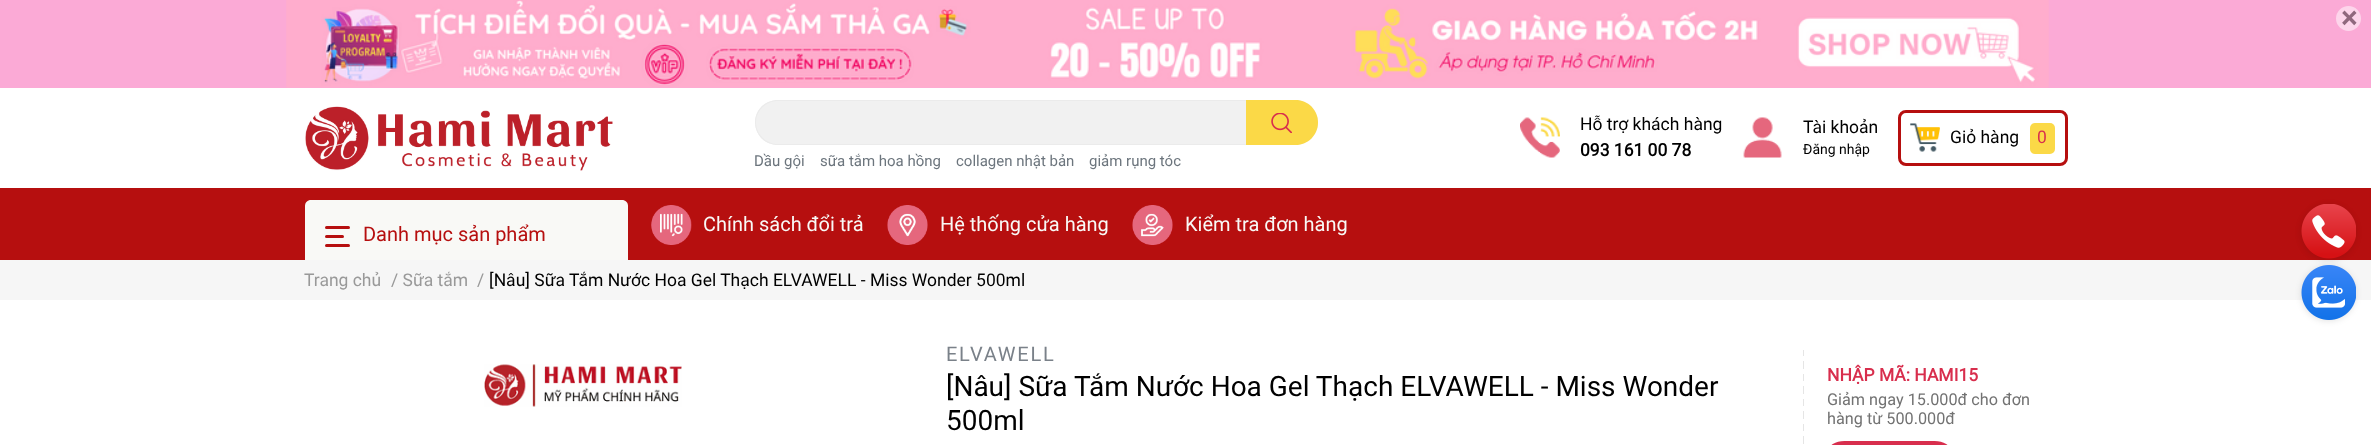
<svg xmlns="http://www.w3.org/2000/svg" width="2371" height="445">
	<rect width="100%" height="100%" fill="#FFFFFF" />
	<rect x="0" y="0" width="2371" height="88" fill="#FBAAD6" />
	<image x="286" y="0" width="1763" height="88" href="assets/img1.png" />
	<circle cx="2348.5" cy="18.5" r="12.5" fill="#FDD5EB" />
	<text x="2341" y="28" font-family="Roboto" font-size="30" font-weight="700" fill="#90687E">×</text>
	<image x="305" y="106" width="308" height="65" href="assets/img2.png" />
	<image x="1520" y="117" width="40" height="41" href="assets/img3.png" />
	<text x="1580" y="130" font-family="Roboto" font-size="17.5" fill="#000000">Hỗ trợ khách hàng</text>
	<text x="1580" y="156" font-family="Roboto" font-size="17.5" font-weight="700" fill="#000000">093 161 00 78</text>
	<image x="1743" y="117" width="39" height="41" href="assets/img4.png" />
	<text x="1803" y="133" font-family="Roboto" font-size="17.5" fill="#000000">Tài khoản</text>
	<text x="1803" y="154" font-family="Roboto" font-size="14" fill="#000000">Đăng nhập</text>
	<rect x="1899.5" y="111.5" width="167" height="53" rx="6.5" fill="none" stroke="#B60F0F" stroke-width="3" />
	<image x="1910" y="123" width="30" height="29" href="assets/img5.png" />
	<text x="1950" y="143" font-family="Roboto" font-size="17.5" fill="#000000">Giỏ hàng</text>
	<rect x="2030" y="123" width="25" height="31" rx="5" fill="#FBD947" />
	<text x="2037" y="143" font-family="Roboto" font-size="17.5" fill="#D82E4D">0</text>
	<rect x="755" y="100" width="563" height="45" rx="22.5" fill="#F1F1F1" />
	<path d="M778 100C765 100 755 110 755 122C755 135 765 145 778 145H1296L1302 144H778C766 144 756 134 756 122C756 111 766 101 778 101H1302L1296 100ZM1317 116V129C1318 125 1318 120 1317 116Z" fill="#EBEBEB" fill-rule="evenodd" />
	<path d="M1246 100H1295.5C1308 100 1318 110 1318 122.5C1318 135 1308 145 1295.5 145H1246Z" fill="#FBD947" />
	<image x="1271" y="113" width="21" height="20" href="assets/img6.png" />
	<g font-family="Roboto" font-size="15" fill="#6C757D">
		<text x="754" y="166">Dầu gội</text>
		<text x="820" y="166">sữa tắm hoa hồng</text>
		<text x="956" y="166">collagen nhật bản</text>
		<text x="1089" y="166">giảm rụng tóc</text>
	</g>
	<rect x="0" y="188" width="2371" height="72" fill="#B60F0F" />
	<path d="M311 200H622C625.5 200 628 202.5 628 206V260H305V206C305 202.5 307.5 200 311 200Z" fill="#F9F9F6" />
	<rect x="325" y="226" width="25" height="3" rx="1.5" fill="#B60F0F" />
	<rect x="325" y="235" width="19" height="3" rx="1.5" fill="#B60F0F" />
	<rect x="325" y="244" width="25" height="3" rx="1.5" fill="#B60F0F" />
	<text x="363" y="241" font-family="Roboto" font-size="20" fill="#B60F0F">Danh mục sản phẩm</text>
	<image x="651" y="205" width="41" height="40" href="assets/img7.png" />
	<text x="703" y="231" font-family="Roboto" font-size="20" fill="#F9F9F6">Chính sách đổi trả</text>
	<image x="887" y="205" width="41" height="40" href="assets/img8.png" />
	<text x="940" y="231" font-family="Roboto" font-size="20" fill="#F9F9F6">Hệ thống cửa hàng</text>
	<image x="1132" y="205" width="41" height="40" href="assets/img9.png" />
	<text x="1185" y="231" font-family="Roboto" font-size="20" fill="#F9F9F6">Kiểm tra đơn hàng</text>
	<rect x="0" y="260" width="2371" height="40" fill="#F6F6F6" />
	<rect x="2301" y="205" width="55" height="55" rx="27.5" fill="#000000" fill-opacity="0.11" filter="blur(3px)" />
	<image x="2301" y="204" width="55" height="55" href="assets/img10.png" />
	<rect x="2301" y="266" width="55" height="55" rx="27.5" fill="#000000" fill-opacity="0.11" filter="blur(3px)" />
	<image x="2301" y="265" width="55" height="55" href="assets/img11.png" />
	<g font-family="Roboto" font-size="17.5" fill="#999999">
		<text x="304" y="286">Trang chủ</text>
		<text x="391" y="286">/ Sữa tắm</text>
		<text x="477" y="286">/</text>
	</g>
	<text x="489" y="286" font-family="Roboto" font-size="17.5" fill="#000000">[Nâu] Sữa Tắm Nước Hoa Gel Thạch ELVAWELL - Miss Wonder 500ml</text>
	<image x="484" y="364" width="198" height="43" href="assets/img12.png" />
	<text x="946" y="361" font-family="Roboto" font-size="20" letter-spacing="1.75" fill="#7A8189">ELVAWELL</text>
	<g font-family="Roboto" font-size="28" fill="#000000">
		<text x="946" y="396">[Nâu] Sữa Tắm Nước Hoa Gel Thạch ELVAWELL - Miss Wonder</text>
		<text x="946" y="430">500ml</text>
	</g>
	<rect x="1803" y="350" width="1" height="6" fill="#E5E5E5" />
	<rect x="1803" y="361" width="1" height="8" fill="#E5E5E5" />
	<rect x="1803" y="374" width="1" height="7" fill="#E5E5E5" />
	<rect x="1803" y="386" width="1" height="8" fill="#E5E5E5" />
	<rect x="1803" y="399" width="1" height="7" fill="#E5E5E5" />
	<rect x="1803" y="411" width="1" height="8" fill="#E5E5E5" />
	<rect x="1803" y="424" width="1" height="7" fill="#E5E5E5" />
	<rect x="1803" y="436" width="1" height="8" fill="#E5E5E5" />
	<text x="1827" y="381" font-family="Roboto" font-size="17.5" font-weight="700" fill="#D82E4D">NHẬP MÃ: HAMI15</text>
	<g font-family="Roboto" font-size="16.25" fill="#727272">
		<text x="1827" y="405">Giảm ngay 15.000đ cho đơn</text>
		<text x="1827" y="424">hàng từ 500.000đ</text>
	</g>
	<rect x="1828" y="441" width="123" height="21" rx="16.5" fill="#D82E4D" />
</svg>
